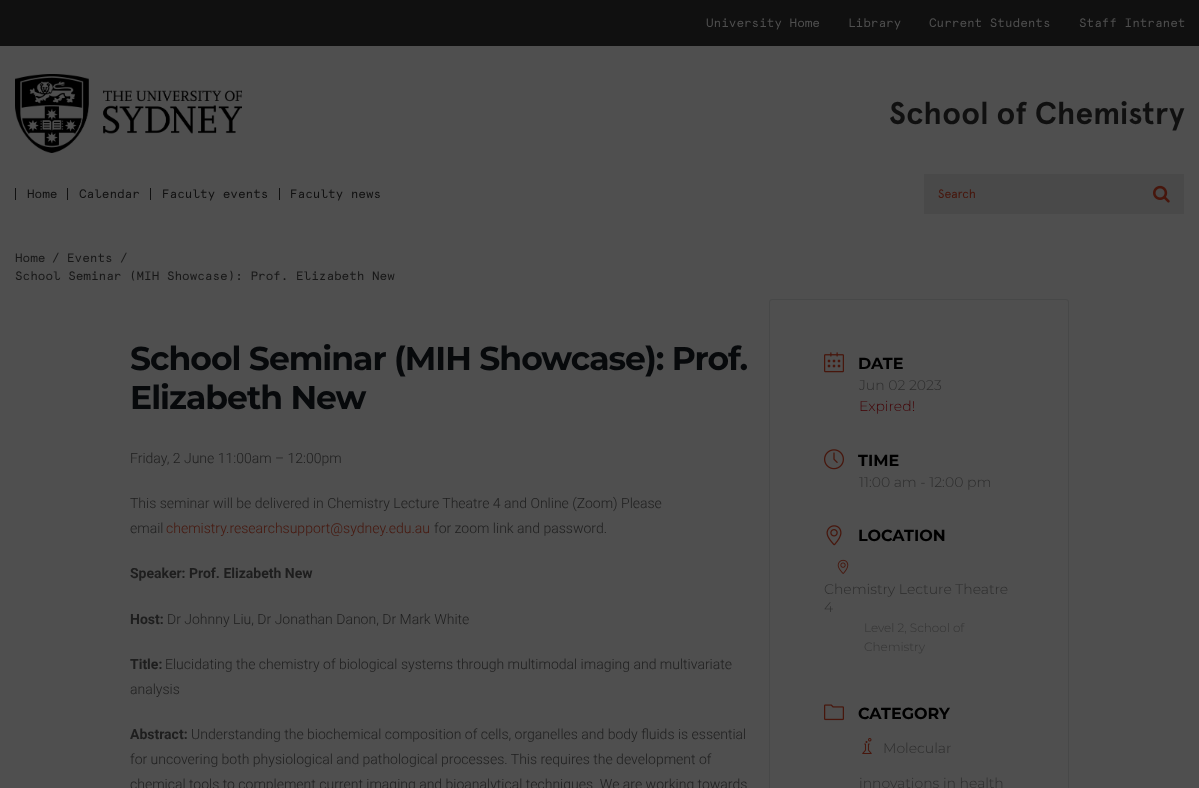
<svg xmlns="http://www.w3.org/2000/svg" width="1199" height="788">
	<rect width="100%" height="100%" fill="#4F4F4F" />
	<rect x="0" y="0" width="1199" height="46" fill="#101010" />
	<g font-family="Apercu" font-size="12.25" font-weight="200" fill="#4F4F4F">
		<text x="706" y="27">University Home</text>
		<text x="848" y="27">Library</text>
		<text x="929" y="27">Current Students</text>
		<text x="1079" y="27">Staff Intranet</text>
	</g>
	<image x="15" y="74" width="227" height="79" href="assets/img1.png" />
	<text x="889" y="124" font-family="Apercu" font-size="31.5" font-weight="700" fill="#101010">School of Chemistry</text>
	<rect x="15" y="188" width="1" height="12" fill="#101010" />
	<text x="27" y="198" font-family="Apercu" font-size="12.25" font-weight="200" fill="#101010">Home</text>
	<rect x="67" y="188" width="1" height="12" fill="#101010" />
	<text x="79" y="198" font-family="Apercu" font-size="12.25" font-weight="200" fill="#101010">Calendar</text>
	<rect x="150" y="188" width="1" height="12" fill="#101010" />
	<text x="162" y="198" font-family="Apercu" font-size="12.25" font-weight="200" fill="#101010">Faculty events</text>
	<rect x="279" y="188" width="1" height="12" fill="#101010" />
	<text x="290" y="198" font-family="Apercu" font-size="12.25" font-weight="200" fill="#101010">Faculty news</text>
	<rect x="924" y="174" width="260" height="40" fill="#494949" />
	<text x="938" y="198" font-family="Apercu" font-size="12.25" fill="#47160C">Search</text>
	<image x="1153" y="185" width="17" height="18" href="assets/img2.png" />
	<g font-family="Apercu" font-size="12.25" font-weight="200" fill="#171717">
		<text x="15" y="262">Home</text>
		<text x="52" y="262">/</text>
		<text x="67" y="262">Events</text>
		<text x="120" y="262">/</text>
		<text x="15" y="280">School Seminar (MIH Showcase): Prof. Elizabeth New</text>
	</g>
	<g font-family="Montserrat" font-size="33" font-weight="700" letter-spacing="-1" fill="#07090B">
		<text x="130" y="370">School Seminar (MIH Showcase): Prof.</text>
		<text x="130" y="409">Elizabeth New</text>
	</g>
	<g font-family="Roboto" font-size="14" font-weight="300" fill="#1E1E1E">
		<text x="130" y="463">Friday, 2 June 11:00am – 12:00pm</text>
		<text x="130" y="508">This seminar will be delivered in Chemistry Lecture Theatre 4 and Online (Zoom) Please</text>
		<text x="130" y="533">email</text>
	</g>
	<text x="166" y="533" font-family="Roboto" font-size="14" font-weight="300" fill="#47160C">chemistry.researchsupport@sydney.edu.au</text>
	<text x="434" y="533" font-family="Roboto" font-size="14" font-weight="300" fill="#1E1E1E">for zoom link and password.</text>
	<g font-family="Roboto" font-size="14" font-weight="700" fill="#1E1E1E">
		<text x="130" y="578">Speaker: Prof. Elizabeth New</text>
		<text x="130" y="624">Host:</text>
	</g>
	<text x="167" y="624" font-family="Roboto" font-size="14" font-weight="300" fill="#1E1E1E">Dr Johnny Liu, Dr Jonathan Danon, Dr Mark White</text>
	<text x="130" y="669" font-family="Roboto" font-size="14" font-weight="700" fill="#1E1E1E">Title:</text>
	<g font-family="Roboto" font-size="14" font-weight="300" fill="#1E1E1E">
		<text x="165" y="669">Elucidating the chemistry of biological systems through multimodal imaging and multivariate</text>
		<text x="130" y="694">analysis</text>
	</g>
	<text x="130" y="739" font-family="Roboto" font-size="14" font-weight="700" fill="#1E1E1E">Abstract:</text>
	<g font-family="Roboto" font-size="14" font-weight="300" fill="#1E1E1E">
		<text x="191" y="739">Understanding the biochemical composition of cells, organelles and body fluids is essential</text>
		<text x="130" y="764">for uncovering both physiological and pathological processes. This requires the development of</text>
		<text x="130" y="789">chemical tools to complement current imaging and bioanalytical techniques. We are working towards</text>
	</g>
	<rect x="769.5" y="299.5" width="299" height="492" rx="2.5" fill="none" stroke="#474848" />
	<image x="824" y="352" width="20" height="21" href="assets/img3.png" />
	<text x="858" y="369" font-family="Montserrat" font-size="16" font-weight="700" fill="#000000">DATE</text>
	<text x="859" y="390" font-family="Montserrat" font-size="14" font-weight="300" fill="#2C2C2C">Jun 02 2023</text>
	<text x="859" y="411" font-family="Montserrat" font-size="14" font-weight="300" fill="#430004">Expired!</text>
	<image x="824" y="449" width="20" height="21" href="assets/img4.png" />
	<text x="858" y="466" font-family="Montserrat" font-size="16" font-weight="700" fill="#000000">TIME</text>
	<text x="859" y="487" font-family="Montserrat" font-size="14" font-weight="300" fill="#2C2C2C">11:00 am - 12:00 pm</text>
	<image x="826" y="525" width="16" height="21" href="assets/img5.png" />
	<text x="858" y="541" font-family="Montserrat" font-size="16" font-weight="700" fill="#000000">LOCATION</text>
	<image x="837" y="559" width="12" height="15" href="assets/img6.png" />
	<g font-family="Montserrat" font-size="14" font-weight="300" fill="#2C2C2C">
		<text x="824" y="594">Chemistry Lecture Theatre</text>
		<text x="824" y="612">4</text>
	</g>
	<g font-family="Montserrat" font-size="12" font-weight="300" fill="#343434">
		<text x="864" y="632">Level 2, School of</text>
		<text x="864" y="651">Chemistry</text>
	</g>
	<image x="824" y="704" width="20" height="17" href="assets/img7.png" />
	<text x="858" y="719" font-family="Montserrat" font-size="16" font-weight="700" fill="#000000">CATEGORY</text>
	<image x="862" y="738" width="10" height="16" href="assets/img8.png" />
	<g font-family="Montserrat" font-size="14" font-weight="300" fill="#2C2C2C">
		<text x="883" y="753">Molecular</text>
		<text x="859" y="788">innovations in health</text>
	</g>
</svg>
